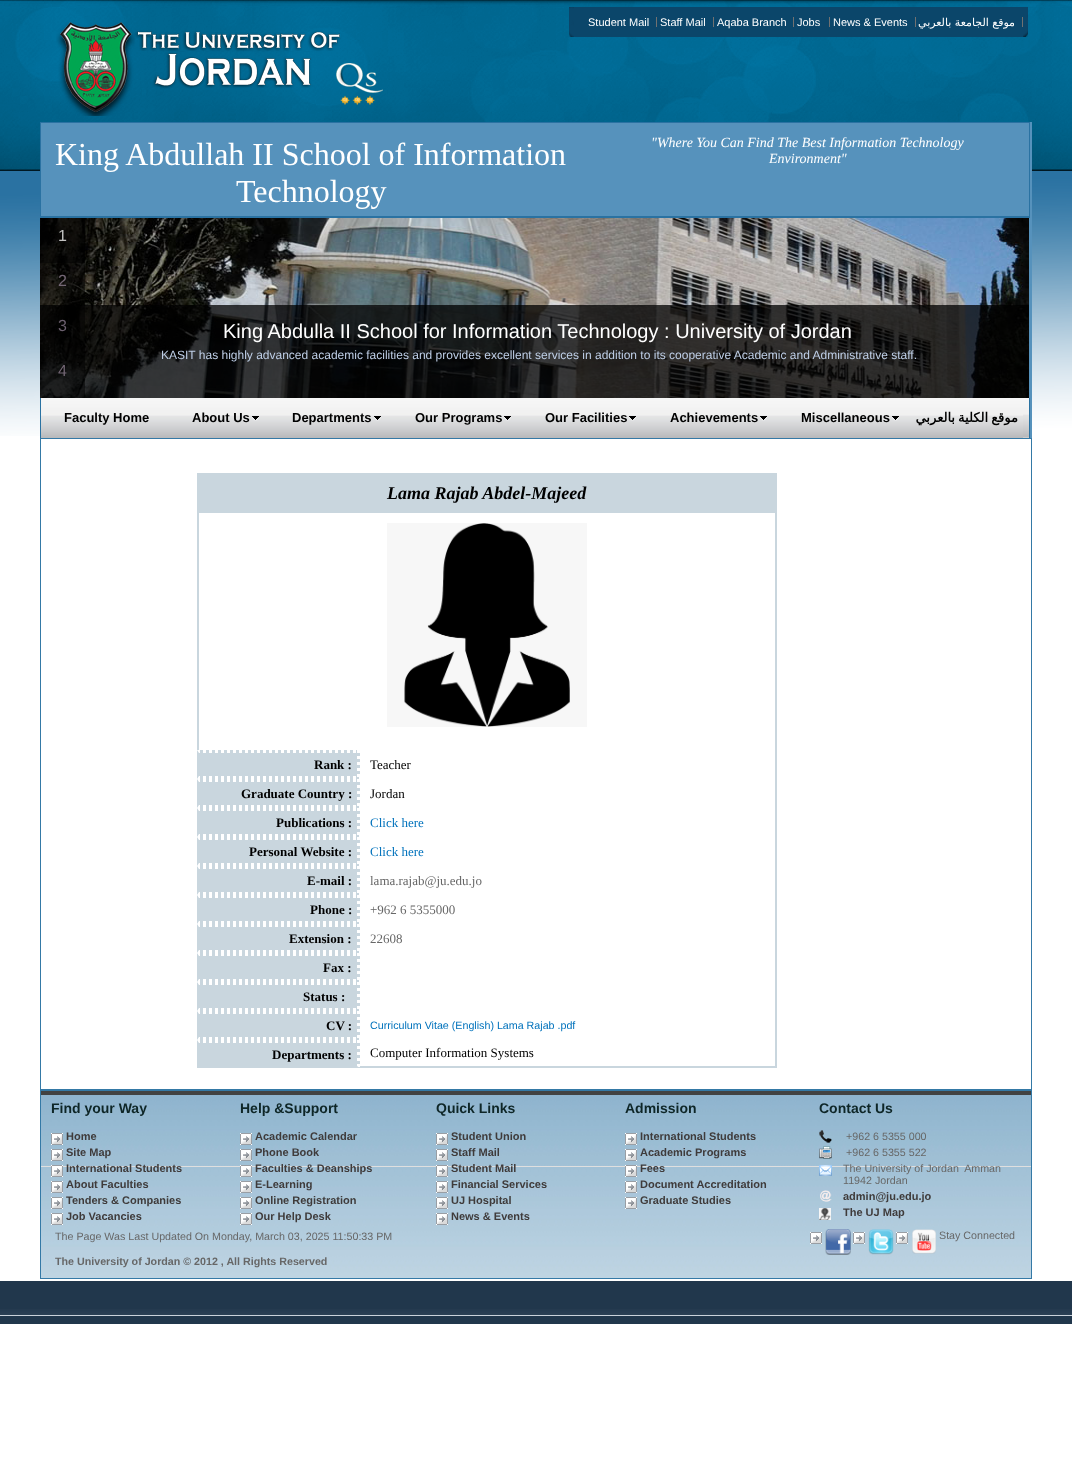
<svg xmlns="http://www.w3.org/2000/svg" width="1072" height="1459">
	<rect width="100%" height="100%" fill="#FFFFFF" />
	<image x="0" y="0" width="1072" height="436" href="assets/img1.png" />
	<image x="56" y="22" width="327" height="94" href="assets/img2.png" />
	<image x="569" y="7" width="5" height="30" href="assets/img3.png" />
	<rect x="574" y="7" width="449" height="30" fill="#0B466A" />
	<rect x="656" y="17" width="1" height="10" fill="#717171" />
	<text x="588" y="26" font-family="Liberation Sans" font-size="11" fill="#FFFFFF">Student Mail</text>
	<rect x="713" y="17" width="1" height="10" fill="#717171" />
	<text x="660" y="26" font-family="Liberation Sans" font-size="11" fill="#FFFFFF">Staff Mail</text>
	<rect x="793" y="17" width="1" height="10" fill="#717171" />
	<text x="717" y="26" font-family="Liberation Sans" font-size="11" fill="#FFFFFF">Aqaba Branch</text>
	<rect x="829" y="17" width="1" height="10" fill="#717171" />
	<text x="797" y="26" font-family="Liberation Sans" font-size="11" fill="#FFFFFF">Jobs</text>
	<rect x="915" y="17" width="1" height="10" fill="#717171" />
	<text x="833" y="26" font-family="Liberation Sans" font-size="11" fill="#FFFFFF">News &amp; Events</text>
	<rect x="1022" y="17" width="1" height="10" fill="#717171" />
	<text x="1015" y="26" font-family="DejaVu Sans" font-size="11" direction="rtl" fill="#FFFFFF">موقع الجامعة بالعربي</text>
	<image x="1023" y="7" width="5" height="30" href="assets/img4.png" />
	<image x="1030" y="122" width="2" height="316" href="assets/img5.png" />
	<rect x="41" y="123" width="988" height="93" fill="#5692BC" />
	<rect x="40.5" y="122.5" width="989" height="95" fill="none" stroke="#2A72A2" />
	<g font-family="Liberation Serif" font-size="32" fill="#FFFFFF">
		<text x="55" y="165">King Abdullah II School of Information</text>
		<text x="236" y="202">Technology</text>
	</g>
	<g font-family="Liberation Serif" font-size="14" font-style="italic" fill="#FFFFFF">
		<text x="651" y="147">"Where You Can Find The Best Information Technology</text>
		<text x="769" y="163">Environment"</text>
	</g>
	<rect x="1029" y="218" width="1" height="180" fill="#5692BC" />
	<image x="40" y="218" width="989" height="180" href="assets/img6.png" />
	<rect x="40" y="218" width="45" height="45" fill="#000000" fill-opacity="0.75" />
	<text x="58" y="241" font-family="Liberation Sans" font-size="16" fill="#C2C2C1">1</text>
	<rect x="40" y="305" width="989" height="93" fill="#000000" fill-opacity="0.75" />
	<rect x="40" y="263" width="45" height="45" fill="#000000" fill-opacity="0.5" />
	<text x="58" y="286" font-family="Liberation Sans" font-size="16" fill="#746775">2</text>
	<rect x="40" y="308" width="45" height="45" fill="#000000" fill-opacity="0.5" />
	<text x="58" y="331" font-family="Liberation Sans" font-size="16" fill="#6D6170">3</text>
	<rect x="40" y="353" width="45" height="45" fill="#000000" fill-opacity="0.5" />
	<text x="58" y="376" font-family="Liberation Sans" font-size="16" fill="#746775">4</text>
	<rect x="40" y="216" width="989" height="1" fill="#2A72A2" />
	<text x="223" y="338" font-family="Liberation Sans" font-size="20" fill="#FFFFFF">King Abdulla II School for Information Technology : University of Jordan</text>
	<text x="161" y="359" font-family="Liberation Sans" font-size="12" fill="#BFCFE7">KASIT has highly advanced academic facilities and provides excellent services in addition to its cooperative Academic and Administrative staff.</text>
	<image x="41" y="398" width="988" height="40" href="assets/img7.png" />
	<rect x="1029" y="398" width="1" height="40" fill="#2A72A2" />
	<rect x="40" y="398" width="1" height="40" fill="#2A72A2" />
	<image x="41" y="414" width="128" height="24" href="assets/img8.png" />
	<text x="64" y="422" font-family="Liberation Sans" font-size="13" font-weight="700" fill="#000000">Faculty Home</text>
	<image x="169" y="414" width="101" height="24" href="assets/img9.png" />
	<text x="192" y="422" font-family="Liberation Sans" font-size="13" font-weight="700" fill="#000000">About Us</text>
	<image x="252" y="416" width="7" height="5" href="assets/img10.png" />
	<image x="270" y="414" width="122" height="24" href="assets/img11.png" />
	<text x="292" y="422" font-family="Liberation Sans" font-size="13" font-weight="700" fill="#000000">Departments</text>
	<image x="374" y="416" width="7" height="5" href="assets/img10.png" />
	<image x="392" y="414" width="130" height="24" href="assets/img12.png" />
	<text x="415" y="422" font-family="Liberation Sans" font-size="13" font-weight="700" fill="#000000">Our Programs</text>
	<image x="504" y="416" width="7" height="5" href="assets/img10.png" />
	<image x="522" y="414" width="125" height="24" href="assets/img13.png" />
	<text x="545" y="422" font-family="Liberation Sans" font-size="13" font-weight="700" fill="#000000">Our Facilities</text>
	<image x="629" y="416" width="7" height="5" href="assets/img10.png" />
	<image x="647" y="414" width="131" height="24" href="assets/img14.png" />
	<text x="670" y="422" font-family="Liberation Sans" font-size="13" font-weight="700" fill="#000000">Achievements</text>
	<image x="760" y="416" width="7" height="5" href="assets/img10.png" />
	<image x="778" y="414" width="132" height="24" href="assets/img15.png" />
	<text x="801" y="422" font-family="Liberation Sans" font-size="13" font-weight="700" fill="#000000">Miscellaneous</text>
	<image x="892" y="416" width="7" height="5" href="assets/img10.png" />
	<image x="910" y="414" width="113" height="24" href="assets/img16.png" />
	<text x="1018" y="422" word-spacing="-1" font-family="DejaVu Sans" font-size="13" font-weight="700" direction="rtl" fill="#000000">موقع الكلية بالعربي</text>
	<rect x="40.5" y="438.5" width="991" height="651" fill="none" stroke="#3479A6" />
	<rect x="197" y="473" width="580" height="40" fill="#C9D6DE" />
	<text x="387" y="499" font-family="Liberation Serif" font-size="18" font-weight="700" font-style="italic" fill="#000000">Lama Rajab Abdel-Majeed</text>
	<rect x="775" y="513" width="2" height="555" fill="#C9D6DE" />
	<rect x="197" y="513" width="2" height="237" fill="#C9D6DE" />
	<image x="387" y="523" width="200" height="204" href="assets/img17.png" />
	<rect x="199" y="750" width="161" height="290" fill="#C9D6DE" />
	<path d="M197 751.5H360" fill="none" stroke="#FFFFFF" stroke-width="3" stroke-dasharray="3 3" />
	<path d="M358.5 750V779" fill="none" stroke="#FFFFFF" stroke-width="3" stroke-dasharray="3 3" />
	<path d="M197 777.5H360" fill="none" stroke="#FFFFFF" stroke-width="3" stroke-dasharray="3 3" />
	<path d="M197 779V750L199 753V776Z" fill="#C9D6DE" />
	<text x="314" y="769" font-family="Liberation Serif" font-size="13" font-weight="700" fill="#000000">Rank :</text>
	<text x="370" y="769" font-family="Liberation Serif" font-size="13" fill="#000000">Teacher</text>
	<path d="M197 780.5H360" fill="none" stroke="#FFFFFF" stroke-width="3" stroke-dasharray="3 3" />
	<path d="M358.5 779V808" fill="none" stroke="#FFFFFF" stroke-width="3" stroke-dasharray="3 3" />
	<path d="M197 806.5H360" fill="none" stroke="#FFFFFF" stroke-width="3" stroke-dasharray="3 3" />
	<path d="M197 808V779L199 782V805Z" fill="#C9D6DE" />
	<text x="241" y="798" font-family="Liberation Serif" font-size="13" font-weight="700" fill="#000000">Graduate Country :</text>
	<text x="370" y="798" font-family="Liberation Serif" font-size="13" fill="#000000">Jordan</text>
	<path d="M197 809.5H360" fill="none" stroke="#FFFFFF" stroke-width="3" stroke-dasharray="3 3" />
	<path d="M358.5 808V837" fill="none" stroke="#FFFFFF" stroke-width="3" stroke-dasharray="3 3" />
	<path d="M197 835.5H360" fill="none" stroke="#FFFFFF" stroke-width="3" stroke-dasharray="3 3" />
	<path d="M197 837V808L199 811V834Z" fill="#C9D6DE" />
	<text x="276" y="827" font-family="Liberation Serif" font-size="13" font-weight="700" fill="#000000">Publications :</text>
	<text x="370" y="827" font-family="Liberation Serif" font-size="13" fill="#0072BC">Click here</text>
	<path d="M197 838.5H360" fill="none" stroke="#FFFFFF" stroke-width="3" stroke-dasharray="3 3" />
	<path d="M358.5 837V866" fill="none" stroke="#FFFFFF" stroke-width="3" stroke-dasharray="3 3" />
	<path d="M197 864.5H360" fill="none" stroke="#FFFFFF" stroke-width="3" stroke-dasharray="3 3" />
	<path d="M197 866V837L199 840V863Z" fill="#C9D6DE" />
	<text x="249" y="856" font-family="Liberation Serif" font-size="13" font-weight="700" fill="#000000">Personal Website :</text>
	<text x="370" y="856" font-family="Liberation Serif" font-size="13" fill="#0072BC">Click here</text>
	<path d="M197 867.5H360" fill="none" stroke="#FFFFFF" stroke-width="3" stroke-dasharray="3 3" />
	<path d="M358.5 866V895" fill="none" stroke="#FFFFFF" stroke-width="3" stroke-dasharray="3 3" />
	<path d="M197 893.5H360" fill="none" stroke="#FFFFFF" stroke-width="3" stroke-dasharray="3 3" />
	<path d="M197 895V866L199 869V892Z" fill="#C9D6DE" />
	<text x="307" y="885" font-family="Liberation Serif" font-size="13" font-weight="700" fill="#000000">E-mail :</text>
	<text x="370" y="885" font-family="Liberation Serif" font-size="13" fill="#676767">lama.rajab@ju.edu.jo</text>
	<path d="M197 896.5H360" fill="none" stroke="#FFFFFF" stroke-width="3" stroke-dasharray="3 3" />
	<path d="M358.5 895V924" fill="none" stroke="#FFFFFF" stroke-width="3" stroke-dasharray="3 3" />
	<path d="M197 922.5H360" fill="none" stroke="#FFFFFF" stroke-width="3" stroke-dasharray="3 3" />
	<path d="M197 924V895L199 898V921Z" fill="#C9D6DE" />
	<text x="310" y="914" font-family="Liberation Serif" font-size="13" font-weight="700" fill="#000000">Phone :</text>
	<text x="370" y="914" font-family="Liberation Serif" font-size="13" fill="#676767">+962 6 5355000</text>
	<path d="M197 925.5H360" fill="none" stroke="#FFFFFF" stroke-width="3" stroke-dasharray="3 3" />
	<path d="M358.5 924V953" fill="none" stroke="#FFFFFF" stroke-width="3" stroke-dasharray="3 3" />
	<path d="M197 951.5H360" fill="none" stroke="#FFFFFF" stroke-width="3" stroke-dasharray="3 3" />
	<path d="M197 953V924L199 927V950Z" fill="#C9D6DE" />
	<text x="289" y="943" font-family="Liberation Serif" font-size="13" font-weight="700" fill="#000000">Extension :</text>
	<text x="370" y="943" font-family="Liberation Serif" font-size="13" fill="#676767">22608</text>
	<path d="M197 954.5H360" fill="none" stroke="#FFFFFF" stroke-width="3" stroke-dasharray="3 3" />
	<path d="M358.5 953V982" fill="none" stroke="#FFFFFF" stroke-width="3" stroke-dasharray="3 3" />
	<path d="M197 980.5H360" fill="none" stroke="#FFFFFF" stroke-width="3" stroke-dasharray="3 3" />
	<path d="M197 982V953L199 956V979Z" fill="#C9D6DE" />
	<text x="323" y="972" font-family="Liberation Serif" font-size="13" font-weight="700" fill="#000000">Fax :</text>
	<path d="M197 983.5H360" fill="none" stroke="#FFFFFF" stroke-width="3" stroke-dasharray="3 3" />
	<path d="M358.5 982V1011" fill="none" stroke="#FFFFFF" stroke-width="3" stroke-dasharray="3 3" />
	<path d="M197 1009.5H360" fill="none" stroke="#FFFFFF" stroke-width="3" stroke-dasharray="3 3" />
	<path d="M197 1011V982L199 985V1008Z" fill="#C9D6DE" />
	<text x="303" y="1001" font-family="Liberation Serif" font-size="13" font-weight="700" fill="#000000">Status :</text>
	<path d="M197 1012.5H360" fill="none" stroke="#FFFFFF" stroke-width="3" stroke-dasharray="3 3" />
	<path d="M358.5 1011V1040" fill="none" stroke="#FFFFFF" stroke-width="3" stroke-dasharray="3 3" />
	<path d="M197 1038.5H360" fill="none" stroke="#FFFFFF" stroke-width="3" stroke-dasharray="3 3" />
	<path d="M197 1040V1011L199 1014V1037Z" fill="#C9D6DE" />
	<text x="326" y="1030" font-family="Liberation Serif" font-size="13" font-weight="700" fill="#000000">CV :</text>
	<text x="370" y="1029" font-family="Liberation Sans" font-size="10.7" fill="#0072BC">Curriculum Vitae (English) Lama Rajab .pdf</text>
	<rect x="197" y="1040" width="163" height="28" fill="#C9D6DE" />
	<path d="M197 1041.5H360" fill="none" stroke="#FFFFFF" stroke-width="3" stroke-dasharray="3 3" />
	<path d="M358.5 1040V1068" fill="none" stroke="#FFFFFF" stroke-width="3" stroke-dasharray="3 3" />
	<path d="M360 1068H197L199 1066H357Z" fill="#C9D6DE" />
	<path d="M197 1068V1040L199 1043V1066Z" fill="#C9D6DE" />
	<text x="272" y="1059" font-family="Liberation Serif" font-size="13" font-weight="700" fill="#000000">Departments :</text>
	<rect x="360" y="1066" width="417" height="2" fill="#C9D6DE" />
	<text x="370" y="1057" font-family="Liberation Serif" font-size="13" fill="#000000">Computer Information Systems</text>
	<image x="41" y="1095" width="990" height="183" href="assets/img18.png" />
	<rect x="40.5" y="1090.5" width="991" height="188" fill="none" stroke="#3479A6" />
	<rect x="41" y="1091" width="990" height="4" fill="#424242" />
	<rect x="41" y="1166" width="990" height="1" fill="#DFDFDF" />
	<text x="51" y="1113" font-family="Liberation Sans" font-size="14" font-weight="700" fill="#0E2627">Find your Way</text>
	<image x="51" y="1133" width="12" height="12" href="assets/img19.png" />
	<text x="66" y="1140" font-family="Liberation Sans" font-size="11" font-weight="700" fill="#3F3B3B">Home</text>
	<image x="51" y="1149" width="12" height="12" href="assets/img19.png" />
	<text x="66" y="1156" font-family="Liberation Sans" font-size="11" font-weight="700" fill="#3F3B3B">Site Map</text>
	<image x="51" y="1165" width="12" height="12" href="assets/img19.png" />
	<text x="66" y="1172" font-family="Liberation Sans" font-size="11" font-weight="700" fill="#3F3B3B">International Students</text>
	<image x="51" y="1181" width="12" height="12" href="assets/img19.png" />
	<text x="66" y="1188" font-family="Liberation Sans" font-size="11" font-weight="700" fill="#3F3B3B">About Faculties</text>
	<image x="51" y="1197" width="12" height="12" href="assets/img19.png" />
	<text x="66" y="1204" font-family="Liberation Sans" font-size="11" font-weight="700" fill="#3F3B3B">Tenders &amp; Companies</text>
	<image x="51" y="1213" width="12" height="12" href="assets/img19.png" />
	<text x="66" y="1220" font-family="Liberation Sans" font-size="11" font-weight="700" fill="#3F3B3B">Job Vacancies</text>
	<text x="240" y="1113" font-family="Liberation Sans" font-size="14" font-weight="700" fill="#0E2627">Help &amp;Support</text>
	<image x="240" y="1133" width="12" height="12" href="assets/img19.png" />
	<text x="255" y="1140" font-family="Liberation Sans" font-size="11" font-weight="700" fill="#3F3B3B">Academic Calendar</text>
	<image x="240" y="1149" width="12" height="12" href="assets/img19.png" />
	<text x="255" y="1156" font-family="Liberation Sans" font-size="11" font-weight="700" fill="#3F3B3B">Phone Book</text>
	<image x="240" y="1165" width="12" height="12" href="assets/img19.png" />
	<text x="255" y="1172" font-family="Liberation Sans" font-size="11" font-weight="700" fill="#3F3B3B">Faculties &amp; Deanships</text>
	<image x="240" y="1181" width="12" height="12" href="assets/img19.png" />
	<text x="255" y="1188" font-family="Liberation Sans" font-size="11" font-weight="700" fill="#3F3B3B">E-Learning</text>
	<image x="240" y="1197" width="12" height="12" href="assets/img19.png" />
	<text x="255" y="1204" font-family="Liberation Sans" font-size="11" font-weight="700" fill="#3F3B3B">Online Registration</text>
	<image x="240" y="1213" width="12" height="12" href="assets/img19.png" />
	<text x="255" y="1220" font-family="Liberation Sans" font-size="11" font-weight="700" fill="#3F3B3B">Our Help Desk</text>
	<text x="436" y="1113" font-family="Liberation Sans" font-size="14" font-weight="700" fill="#0E2627">Quick Links</text>
	<image x="436" y="1133" width="12" height="12" href="assets/img19.png" />
	<text x="451" y="1140" font-family="Liberation Sans" font-size="11" font-weight="700" fill="#3F3B3B">Student Union</text>
	<image x="436" y="1149" width="12" height="12" href="assets/img19.png" />
	<text x="451" y="1156" font-family="Liberation Sans" font-size="11" font-weight="700" fill="#3F3B3B">Staff Mail</text>
	<image x="436" y="1165" width="12" height="12" href="assets/img19.png" />
	<text x="451" y="1172" font-family="Liberation Sans" font-size="11" font-weight="700" fill="#3F3B3B">Student Mail</text>
	<image x="436" y="1181" width="12" height="12" href="assets/img19.png" />
	<text x="451" y="1188" font-family="Liberation Sans" font-size="11" font-weight="700" fill="#3F3B3B">Financial Services</text>
	<image x="436" y="1197" width="12" height="12" href="assets/img19.png" />
	<text x="451" y="1204" font-family="Liberation Sans" font-size="11" font-weight="700" fill="#3F3B3B">UJ Hospital</text>
	<image x="436" y="1213" width="12" height="12" href="assets/img19.png" />
	<text x="451" y="1220" font-family="Liberation Sans" font-size="11" font-weight="700" fill="#3F3B3B">News &amp; Events</text>
	<text x="625" y="1113" font-family="Liberation Sans" font-size="14" font-weight="700" fill="#0E2627">Admission</text>
	<image x="625" y="1133" width="12" height="12" href="assets/img19.png" />
	<text x="640" y="1140" font-family="Liberation Sans" font-size="11" font-weight="700" fill="#3F3B3B">International Students</text>
	<image x="625" y="1149" width="12" height="12" href="assets/img19.png" />
	<text x="640" y="1156" font-family="Liberation Sans" font-size="11" font-weight="700" fill="#3F3B3B">Academic Programs</text>
	<image x="625" y="1165" width="12" height="12" href="assets/img19.png" />
	<text x="640" y="1172" font-family="Liberation Sans" font-size="11" font-weight="700" fill="#3F3B3B">Fees</text>
	<image x="625" y="1181" width="12" height="12" href="assets/img19.png" />
	<text x="640" y="1188" font-family="Liberation Sans" font-size="11" font-weight="700" fill="#3F3B3B">Document Accreditation</text>
	<image x="625" y="1197" width="12" height="12" href="assets/img19.png" />
	<text x="640" y="1204" font-family="Liberation Sans" font-size="11" font-weight="700" fill="#3F3B3B">Graduate Studies</text>
	<text x="819" y="1113" font-family="Liberation Sans" font-size="14" font-weight="700" fill="#0E2627">Contact Us</text>
	<image x="819" y="1130" width="13" height="13" href="assets/img20.png" />
	<text x="846" y="1140" font-family="Liberation Sans" font-size="10.7" fill="#676767">+962 6 5355 000</text>
	<image x="819" y="1146" width="13" height="13" href="assets/img21.png" />
	<text x="846" y="1156" font-family="Liberation Sans" font-size="10.7" fill="#676767">+962 6 5355 522</text>
	<image x="819" y="1165" width="13" height="11" href="assets/img22.png" />
	<g font-family="Liberation Sans" font-size="10.7" fill="#676767">
		<text x="843" y="1172" xml:space="preserve">The University of Jordan  Amman</text>
		<text x="843" y="1184">11942 Jordan</text>
	</g>
	<image x="820" y="1190" width="12" height="12" href="assets/img23.png" />
	<text x="843" y="1200" font-family="Liberation Sans" font-size="11" font-weight="700" fill="#3F3B3B">admin@ju.edu.jo</text>
	<image x="819" y="1208" width="12" height="12" href="assets/img24.png" />
	<text x="843" y="1216" font-family="Liberation Sans" font-size="11" font-weight="700" fill="#3F3B3B">The UJ Map</text>
	<text x="55" y="1240" font-family="Liberation Sans" font-size="10.7" fill="#676767">The Page Was Last Updated On Monday, March 03, 2025 11:50:33 PM</text>
	<text x="55" y="1265" font-family="Liberation Sans" font-size="10.7" font-weight="700" fill="#676767">The University of Jordan © 2012 , All Rights Reserved</text>
	<image x="810" y="1232" width="12" height="12" href="assets/img19.png" />
	<image x="825" y="1229" width="26" height="26" href="assets/img25.png" />
	<image x="853" y="1232" width="12" height="12" href="assets/img19.png" />
	<image x="868" y="1229" width="26" height="26" href="assets/img26.png" />
	<image x="896" y="1232" width="12" height="12" href="assets/img19.png" />
	<image x="912" y="1229" width="24" height="25" href="assets/img27.png" />
	<text x="939" y="1239" font-family="Liberation Sans" font-size="10.7" fill="#676767">Stay Connected</text>
	<rect x="0" y="1281" width="1072" height="43" fill="#21374C" />
	<image x="0" y="1309" width="1072" height="6" href="assets/img28.png" />
	<rect x="0" y="1315" width="1072" height="1" fill="#CAD2DB" />
</svg>
